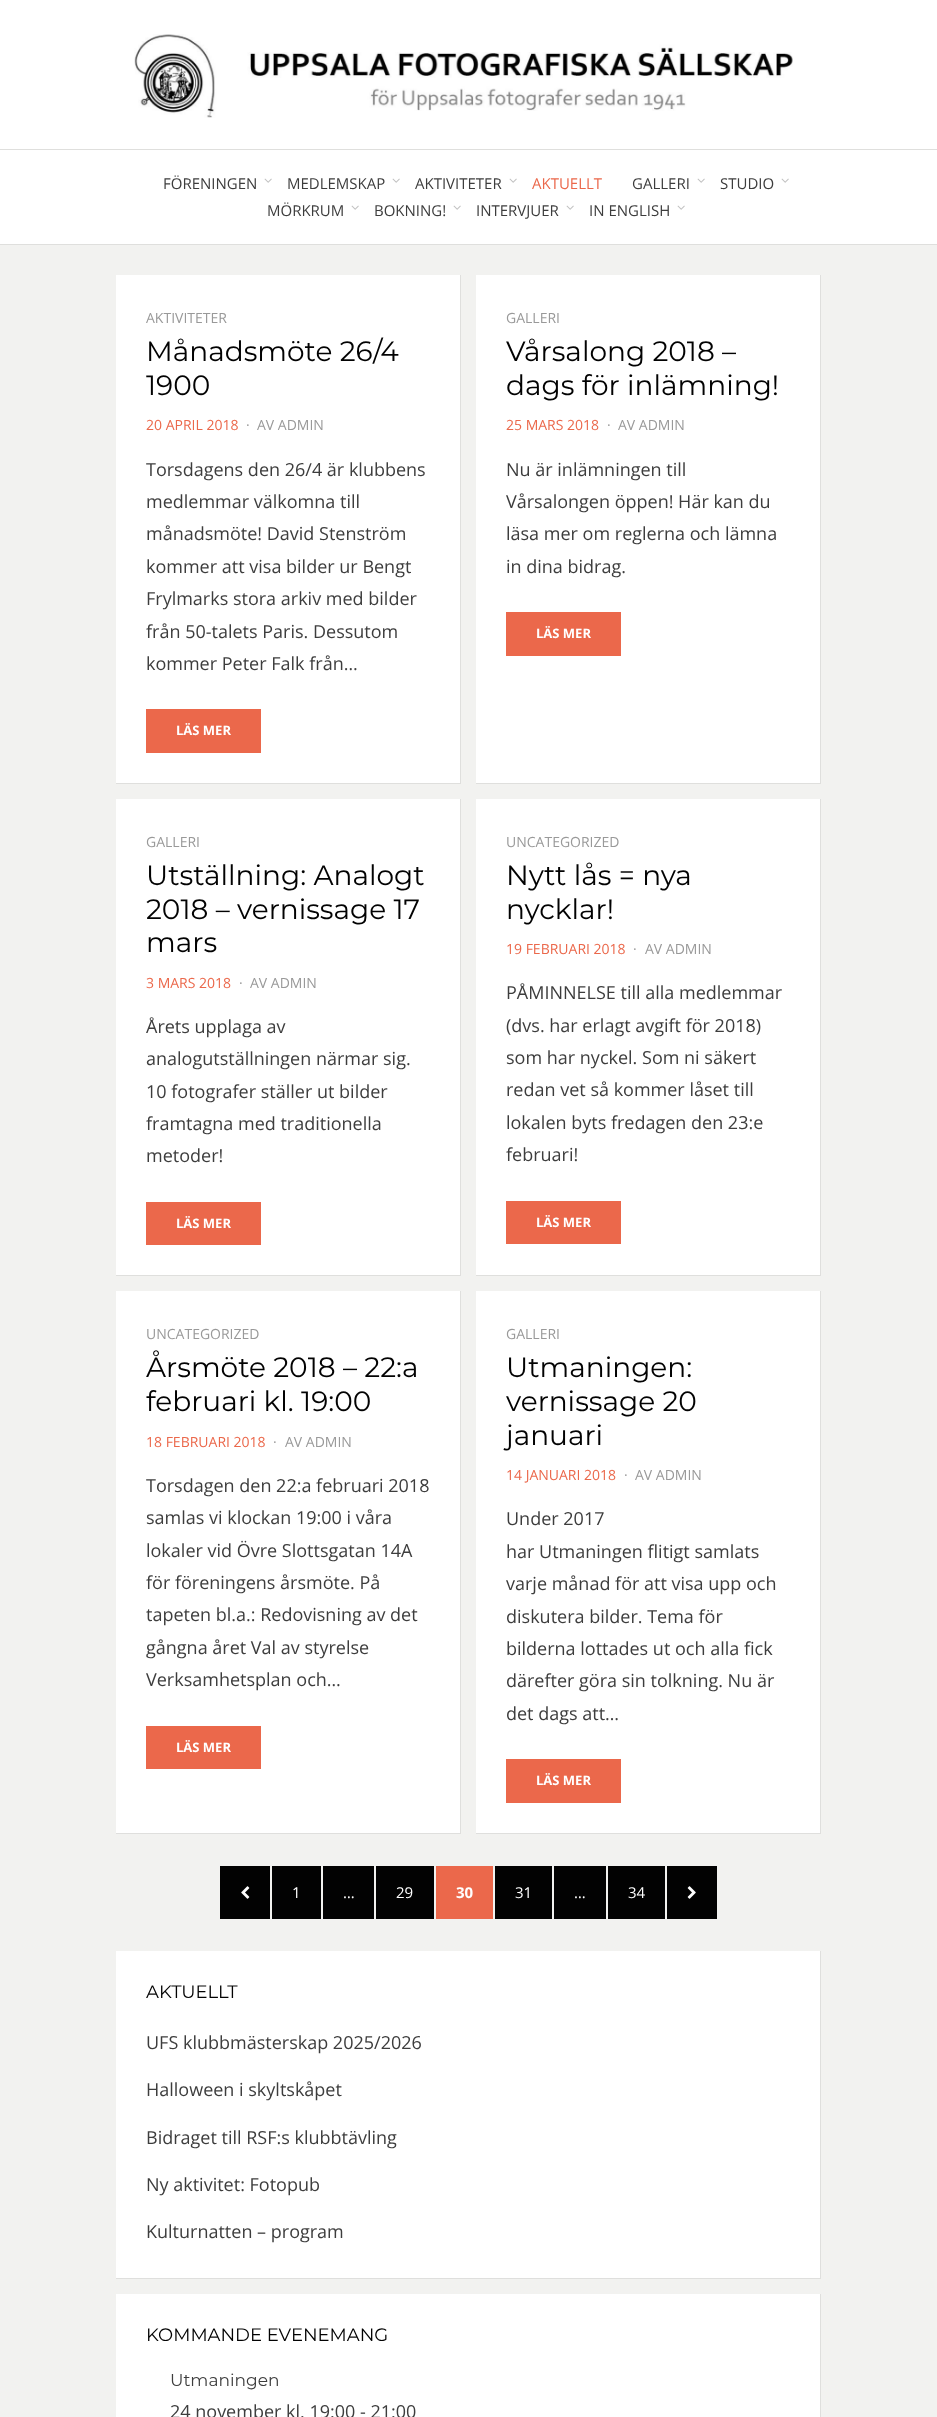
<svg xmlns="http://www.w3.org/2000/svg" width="937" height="2417">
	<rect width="100%" height="100%" fill="#F2F2F0" />
	<rect x="0" y="0" width="937" height="149" fill="#FFFFFF" />
	<image x="134" y="34" width="659" height="84" href="assets/img1.png" />
	<rect x="0" y="150" width="937" height="94" fill="#FFFFFF" />
	<rect x="0" y="149" width="937" height="1" fill="#DFDFDD" />
	<rect x="0" y="244" width="937" height="1" fill="#DFDFDD" />
	<text x="163" y="189" font-family="Open Sans" font-size="15" fill="#3D3D3D">FÖRENINGEN</text>
	<image x="264" y="178" width="8" height="5" href="assets/img2.png" />
	<text x="287" y="189" font-family="Open Sans" font-size="15" fill="#3D3D3D">MEDLEMSKAP</text>
	<image x="392" y="178" width="8" height="5" href="assets/img2.png" />
	<text x="415" y="189" font-family="Open Sans" font-size="15" fill="#3D3D3D">AKTIVITETER</text>
	<image x="509" y="178" width="8" height="5" href="assets/img2.png" />
	<text x="532" y="189" font-family="Open Sans" font-size="15" fill="#EB684B">AKTUELLT</text>
	<text x="632" y="189" font-family="Open Sans" font-size="15" fill="#3D3D3D">GALLERI</text>
	<image x="697" y="178" width="8" height="5" href="assets/img2.png" />
	<text x="720" y="189" font-family="Open Sans" font-size="15" fill="#3D3D3D">STUDIO</text>
	<image x="781" y="178" width="8" height="5" href="assets/img2.png" />
	<text x="267" y="216" font-family="Open Sans" font-size="15" fill="#3D3D3D">MÖRKRUM</text>
	<image x="351" y="205" width="8" height="5" href="assets/img2.png" />
	<text x="374" y="216" font-family="Open Sans" font-size="15" fill="#3D3D3D">BOKNING!</text>
	<image x="453" y="205" width="8" height="5" href="assets/img2.png" />
	<text x="476" y="216" font-family="Open Sans" font-size="15" fill="#3D3D3D">INTERVJUER</text>
	<image x="566" y="205" width="8" height="5" href="assets/img2.png" />
	<text x="589" y="216" font-family="Open Sans" font-size="15" fill="#3D3D3D">IN ENGLISH</text>
	<image x="677" y="205" width="8" height="5" href="assets/img2.png" />
	<rect x="116" y="275" width="344" height="508" fill="#FFFFFF" />
	<rect x="460" y="275" width="1" height="509" fill="#DFDFDD" />
	<rect x="116" y="783" width="345" height="1" fill="#DFDFDD" />
	<text x="146" y="323" font-family="Open Sans" font-size="14" fill="#999999">AKTIVITETER</text>
	<g font-family="Montserrat" font-size="28" fill="#020202">
		<text x="146" y="361">Månadsmöte 26/4</text>
		<text x="146" y="395">1900</text>
	</g>
	<text x="146" y="430" font-family="Open Sans" font-size="14" fill="#EB684B">20 APRIL 2018</text>
	<g font-family="Open Sans" font-size="14" fill="#999999">
		<text x="246" y="430">·</text>
		<text x="257" y="430">AV ADMIN</text>
	</g>
	<g font-family="Open Sans" font-size="18" fill="#3D3D3D">
		<text x="146" y="476">Torsdagens den 26/4 är klubbens</text>
		<text x="146" y="508">medlemmar välkomna till</text>
		<text x="146" y="540">månadsmöte! David Stenström</text>
		<text x="146" y="573">kommer att visa bilder ur Bengt</text>
		<text x="146" y="605">Frylmarks stora arkiv med bilder</text>
		<text x="146" y="638">från 50-talets Paris. Dessutom</text>
		<text x="146" y="670">kommer Peter Falk från…</text>
	</g>
	<rect x="146" y="709" width="115" height="44" fill="#EB684B" />
	<text x="176" y="735" font-family="Open Sans" font-size="13" font-weight="700" fill="#FFFFFF">LÄS MER</text>
	<rect x="476" y="275" width="344" height="508" fill="#FFFFFF" />
	<rect x="820" y="275" width="1" height="509" fill="#DFDFDD" />
	<rect x="476" y="783" width="345" height="1" fill="#DFDFDD" />
	<text x="506" y="323" font-family="Open Sans" font-size="14" fill="#999999">GALLERI</text>
	<g font-family="Montserrat" font-size="28" fill="#020202">
		<text x="506" y="361">Vårsalong 2018 –</text>
		<text x="506" y="395">dags för inlämning!</text>
	</g>
	<text x="506" y="430" font-family="Open Sans" font-size="14" fill="#EB684B">25 MARS 2018</text>
	<g font-family="Open Sans" font-size="14" fill="#999999">
		<text x="607" y="430">·</text>
		<text x="618" y="430">AV ADMIN</text>
	</g>
	<g font-family="Open Sans" font-size="18" fill="#3D3D3D">
		<text x="506" y="476">Nu är inlämningen till</text>
		<text x="506" y="508">Vårsalongen öppen! Här kan du</text>
		<text x="506" y="540">läsa mer om reglerna och lämna</text>
		<text x="506" y="573">in dina bidrag.</text>
	</g>
	<rect x="506" y="612" width="115" height="44" fill="#EB684B" />
	<text x="536" y="638" font-family="Open Sans" font-size="13" font-weight="700" fill="#FFFFFF">LÄS MER</text>
	<rect x="116" y="799" width="344" height="476" fill="#FFFFFF" />
	<rect x="460" y="799" width="1" height="477" fill="#DFDFDD" />
	<rect x="116" y="1275" width="345" height="1" fill="#DFDFDD" />
	<text x="146" y="847" font-family="Open Sans" font-size="14" fill="#999999">GALLERI</text>
	<g font-family="Montserrat" font-size="28" fill="#020202">
		<text x="146" y="885">Utställning: Analogt</text>
		<text x="146" y="919">2018 – vernissage 17</text>
		<text x="146" y="952">mars</text>
	</g>
	<text x="146" y="988" font-family="Open Sans" font-size="14" fill="#EB684B">3 MARS 2018</text>
	<g font-family="Open Sans" font-size="14" fill="#999999">
		<text x="239" y="988">·</text>
		<text x="250" y="988">AV ADMIN</text>
	</g>
	<g font-family="Open Sans" font-size="18" fill="#3D3D3D">
		<text x="146" y="1033">Årets upplaga av</text>
		<text x="146" y="1065">analogutställningen närmar sig.</text>
		<text x="146" y="1098">10 fotografer ställer ut bilder</text>
		<text x="146" y="1130">framtagna med traditionella</text>
		<text x="146" y="1162">metoder!</text>
	</g>
	<rect x="146" y="1202" width="115" height="43" fill="#EB684B" />
	<text x="176" y="1228" font-family="Open Sans" font-size="13" font-weight="700" fill="#FFFFFF">LÄS MER</text>
	<rect x="476" y="799" width="344" height="476" fill="#FFFFFF" />
	<rect x="820" y="799" width="1" height="477" fill="#DFDFDD" />
	<rect x="476" y="1275" width="345" height="1" fill="#DFDFDD" />
	<text x="506" y="847" font-family="Open Sans" font-size="14" fill="#999999">UNCATEGORIZED</text>
	<g font-family="Montserrat" font-size="28" fill="#020202">
		<text x="506" y="885">Nytt lås = nya</text>
		<text x="506" y="919">nycklar!</text>
	</g>
	<text x="506" y="954" font-family="Open Sans" font-size="14" fill="#EB684B">19 FEBRUARI 2018</text>
	<g font-family="Open Sans" font-size="14" fill="#999999">
		<text x="633" y="954">·</text>
		<text x="645" y="954">AV ADMIN</text>
	</g>
	<g font-family="Open Sans" font-size="18" fill="#3D3D3D">
		<text x="506" y="999">PÅMINNELSE till alla medlemmar</text>
		<text x="506" y="1032">(dvs. har erlagt avgift för 2018)</text>
		<text x="506" y="1064">som har nyckel. Som ni säkert</text>
		<text x="506" y="1096">redan vet så kommer låset till</text>
		<text x="506" y="1129">lokalen byts fredagen den 23:e</text>
		<text x="506" y="1161">februari!</text>
	</g>
	<rect x="506" y="1201" width="115" height="43" fill="#EB684B" />
	<text x="536" y="1227" font-family="Open Sans" font-size="13" font-weight="700" fill="#FFFFFF">LÄS MER</text>
	<rect x="116" y="1291" width="344" height="542" fill="#FFFFFF" />
	<rect x="460" y="1291" width="1" height="543" fill="#DFDFDD" />
	<rect x="116" y="1833" width="345" height="1" fill="#DFDFDD" />
	<text x="146" y="1339" font-family="Open Sans" font-size="14" fill="#999999">UNCATEGORIZED</text>
	<g font-family="Montserrat" font-size="28" fill="#020202">
		<text x="146" y="1377">Årsmöte 2018 – 22:a</text>
		<text x="146" y="1411">februari kl. 19:00</text>
	</g>
	<text x="146" y="1447" font-family="Open Sans" font-size="14" fill="#EB684B">18 FEBRUARI 2018</text>
	<g font-family="Open Sans" font-size="14" fill="#999999">
		<text x="273" y="1447">·</text>
		<text x="285" y="1447">AV ADMIN</text>
	</g>
	<g font-family="Open Sans" font-size="18" fill="#3D3D3D">
		<text x="146" y="1492">Torsdagen den 22:a februari 2018</text>
		<text x="146" y="1524">samlas vi klockan 19:00 i våra</text>
		<text x="146" y="1557">lokaler vid Övre Slottsgatan 14A</text>
		<text x="146" y="1589">för föreningens årsmöte. På</text>
		<text x="146" y="1621">tapeten bl.a.: Redovisning av det</text>
		<text x="146" y="1654">gångna året Val av styrelse</text>
		<text x="146" y="1686">Verksamhetsplan och…</text>
	</g>
	<rect x="146" y="1726" width="115" height="43" fill="#EB684B" />
	<text x="176" y="1752" font-family="Open Sans" font-size="13" font-weight="700" fill="#FFFFFF">LÄS MER</text>
	<rect x="476" y="1291" width="344" height="542" fill="#FFFFFF" />
	<rect x="820" y="1291" width="1" height="543" fill="#DFDFDD" />
	<rect x="476" y="1833" width="345" height="1" fill="#DFDFDD" />
	<text x="506" y="1339" font-family="Open Sans" font-size="14" fill="#999999">GALLERI</text>
	<g font-family="Montserrat" font-size="28" fill="#020202">
		<text x="506" y="1377">Utmaningen:</text>
		<text x="506" y="1411">vernissage 20</text>
		<text x="506" y="1445">januari</text>
	</g>
	<text x="506" y="1480" font-family="Open Sans" font-size="14" fill="#EB684B">14 JANUARI 2018</text>
	<g font-family="Open Sans" font-size="14" fill="#999999">
		<text x="624" y="1480">·</text>
		<text x="635" y="1480">AV ADMIN</text>
	</g>
	<g font-family="Open Sans" font-size="18" fill="#3D3D3D">
		<text x="506" y="1525">Under 2017</text>
		<text x="506" y="1558">har Utmaningen flitigt samlats</text>
		<text x="506" y="1590">varje månad för att visa upp och</text>
		<text x="506" y="1623">diskutera bilder. Tema för</text>
		<text x="506" y="1655">bilderna lottades ut och alla fick</text>
		<text x="506" y="1687">därefter göra sin tolkning. Nu är</text>
		<text x="506" y="1720">det dags att…</text>
	</g>
	<rect x="506" y="1759" width="115" height="44" fill="#EB684B" />
	<text x="536" y="1785" font-family="Open Sans" font-size="13" font-weight="700" fill="#FFFFFF">LÄS MER</text>
	<rect x="220" y="1866" width="50" height="53" fill="#020202" />
	<image x="241" y="1886" width="9" height="13" href="assets/img3.png" />
	<rect x="272" y="1866" width="49" height="53" fill="#020202" />
	<text x="292" y="1898" font-family="Open Sans" font-size="15" fill="#FFFFFF">1</text>
	<rect x="323" y="1866" width="51" height="53" fill="#020202" />
	<text x="343" y="1898" font-family="Open Sans" font-size="15" fill="#FFFFFF">…</text>
	<rect x="376" y="1866" width="58" height="53" fill="#020202" />
	<text x="396" y="1898" font-family="Open Sans" font-size="15" fill="#FFFFFF">29</text>
	<rect x="436" y="1866" width="57" height="53" fill="#EB684B" />
	<text x="456" y="1898" font-family="Open Sans" font-size="15" font-weight="700" fill="#FFFFFF">30</text>
	<rect x="495" y="1866" width="57" height="53" fill="#020202" />
	<text x="515" y="1898" font-family="Open Sans" font-size="15" fill="#FFFFFF">31</text>
	<rect x="554" y="1866" width="52" height="53" fill="#020202" />
	<text x="574" y="1898" font-family="Open Sans" font-size="15" fill="#FFFFFF">…</text>
	<rect x="608" y="1866" width="57" height="53" fill="#020202" />
	<text x="628" y="1898" font-family="Open Sans" font-size="15" fill="#FFFFFF">34</text>
	<rect x="667" y="1866" width="50" height="53" fill="#020202" />
	<image x="687" y="1886" width="9" height="13" href="assets/img4.png" />
	<rect x="116" y="1951" width="704" height="327" fill="#FFFFFF" />
	<rect x="820" y="1951" width="1" height="328" fill="#DFDFDD" />
	<rect x="116" y="2278" width="705" height="1" fill="#DFDFDD" />
	<text x="146" y="1998" font-family="Montserrat" font-size="18" fill="#020202">AKTUELLT</text>
	<g font-family="Open Sans" font-size="18" fill="#3D3D3D">
		<text x="146" y="2049">UFS klubbmästerskap 2025/2026</text>
		<text x="146" y="2096">Halloween i skyltskåpet</text>
		<text x="146" y="2144">Bidraget till RSF:s klubbtävling</text>
		<text x="146" y="2191">Ny aktivitet: Fotopub</text>
		<text x="146" y="2238">Kulturnatten – program</text>
	</g>
	<rect x="116" y="2294" width="704" height="123" fill="#FFFFFF" />
	<rect x="820" y="2294" width="1" height="123" fill="#DFDFDD" />
	<text x="146" y="2341" font-family="Montserrat" font-size="18" fill="#020202">KOMMANDE EVENEMANG</text>
	<text x="170" y="2386" font-family="Montserrat" font-size="17" fill="#3D3D3D">Utmaningen</text>
	<text x="170" y="2418" font-family="Open Sans" font-size="18" fill="#3D3D3D">24 november kl. 19:00 - 21:00</text>
</svg>
